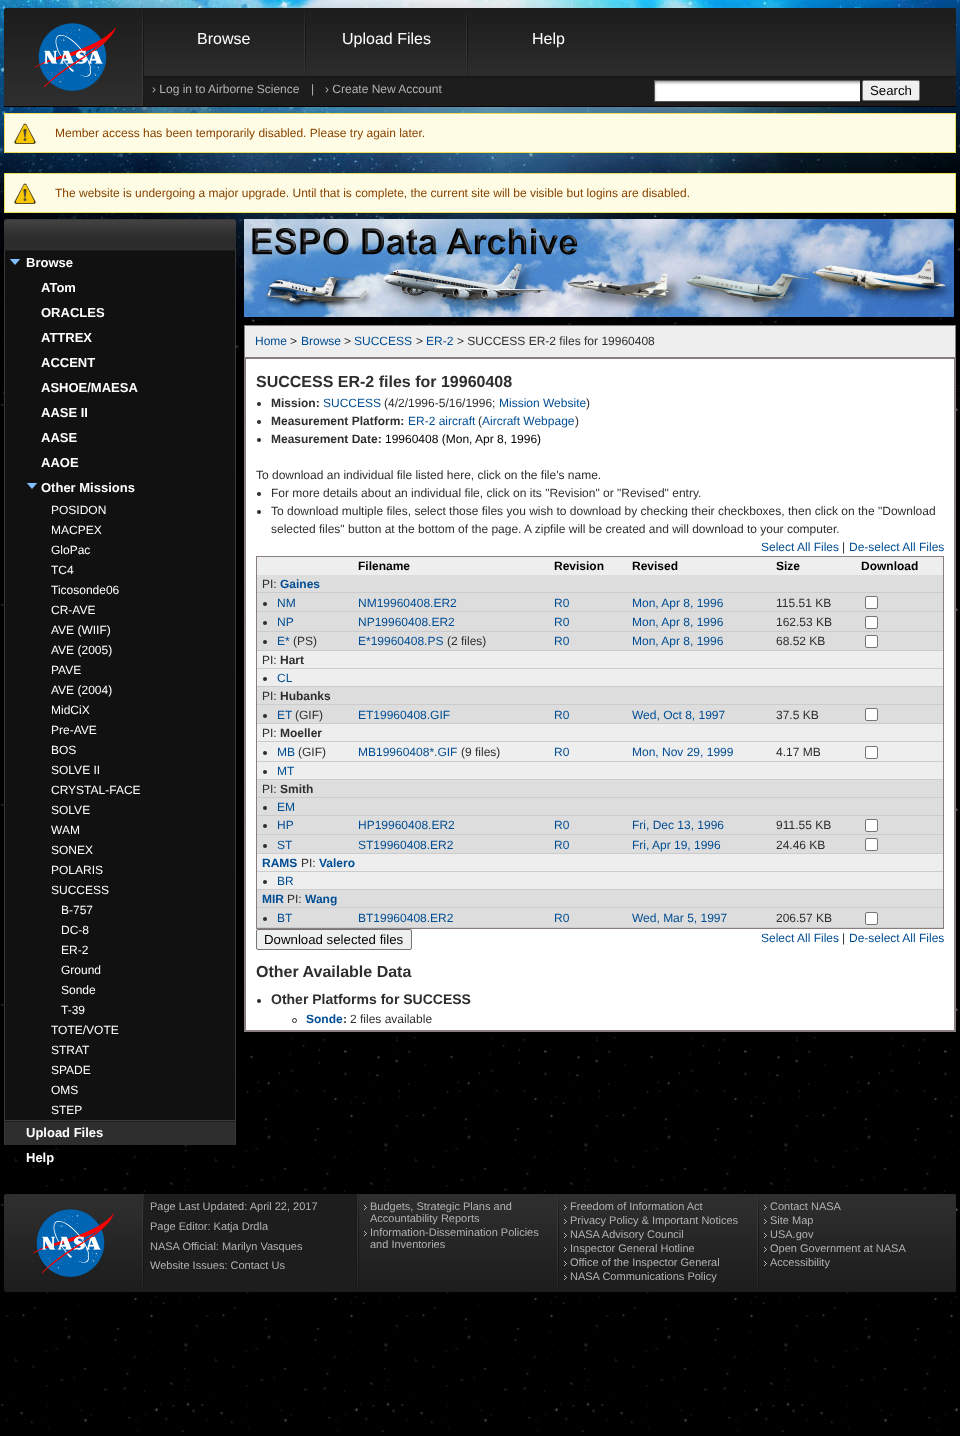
<svg xmlns="http://www.w3.org/2000/svg" width="960" height="1436">
	<rect width="100%" height="100%" fill="#FFFFFF" />
	<image x="0" y="400" width="960" height="1036" href="assets/img1.png" />
	<image x="0" y="0" width="960" height="400" href="assets/img2.png" />
	<image x="144" y="8" width="812" height="98" href="assets/img3.png" />
	<rect x="4" y="106" width="952" height="1" fill="#000000" />
	<image x="4" y="8" width="140" height="98" href="assets/img4.png" />
	<image x="304" y="11" width="2" height="65" href="assets/img5.png" />
	<text x="197" y="44" font-family="Liberation Sans" font-size="16" fill="#FFFFFF">Browse</text>
	<image x="466" y="11" width="2" height="65" href="assets/img5.png" />
	<g font-family="Liberation Sans" font-size="16" fill="#FFFFFF">
		<text x="342" y="44">Upload Files</text>
		<text x="532" y="44">Help</text>
	</g>
	<g font-family="Liberation Sans" font-size="12" fill="#B2B2B2">
		<text x="152" y="93">› Log in to Airborne Science</text>
		<text x="311" y="93">|</text>
		<text x="325" y="93">› Create New Account</text>
	</g>
	<image x="654" y="80" width="206" height="22" href="assets/img6.png" />
	<rect x="862.5" y="80.5" width="57" height="20" rx="1.5" fill="#EFEFEF" stroke="#767676" />
	<text x="870" y="95" font-family="Liberation Sans" font-size="13.25" fill="#000000">Search</text>
	<rect x="5" y="114" width="950" height="38" fill="#FFFCE5" />
	<image x="14" y="123" width="22" height="22" href="assets/img7.png" />
	<rect x="4.5" y="113.5" width="951" height="39" fill="none" stroke="#EEDD55" />
	<text x="55" y="137" font-family="Liberation Sans" font-size="12" fill="#884400">Member access has been temporarily disabled. Please try again later.</text>
	<rect x="5" y="174" width="950" height="38" fill="#FFFCE5" />
	<image x="14" y="183" width="22" height="22" href="assets/img7.png" />
	<rect x="4.5" y="173.5" width="951" height="39" fill="none" stroke="#EEDD55" />
	<text x="55" y="197" font-family="Liberation Sans" font-size="12" fill="#884400">The website is undergoing a major upgrade. Until that is complete, the current site will be visible but logins are disabled.</text>
	<image x="4" y="219" width="232" height="3" href="assets/img8.png" />
	<image x="4" y="222" width="232" height="28" href="assets/img9.png" />
	<image x="4" y="250" width="232" height="870" href="assets/img10.png" />
	<g font-family="Liberation Sans" font-size="13" font-weight="700" fill="#FFFFFF">
		<text x="26" y="267">Browse</text>
		<text x="41" y="292">ATom</text>
		<text x="41" y="317">ORACLES</text>
		<text x="41" y="342">ATTREX</text>
		<text x="41" y="367">ACCENT</text>
		<text x="41" y="392">ASHOE/MAESA</text>
		<text x="41" y="417">AASE II</text>
		<text x="41" y="442">AASE</text>
		<text x="41" y="467">AAOE</text>
	</g>
	<image x="26" y="483" width="12" height="6" href="assets/img11.png" />
	<text x="41" y="492" font-family="Liberation Sans" font-size="13" font-weight="700" fill="#FFFFFF">Other Missions</text>
	<g font-family="Liberation Sans" font-size="12" fill="#FFFFFF">
		<text x="51" y="514">POSIDON</text>
		<text x="51" y="534">MACPEX</text>
		<text x="51" y="554">GloPac</text>
		<text x="51" y="574">TC4</text>
		<text x="51" y="594">Ticosonde06</text>
		<text x="51" y="614">CR-AVE</text>
		<text x="51" y="634">AVE (WIIF)</text>
		<text x="51" y="654">AVE (2005)</text>
		<text x="51" y="674">PAVE</text>
		<text x="51" y="694">AVE (2004)</text>
		<text x="51" y="714">MidCiX</text>
		<text x="51" y="734">Pre-AVE</text>
		<text x="51" y="754">BOS</text>
		<text x="51" y="774">SOLVE II</text>
		<text x="51" y="794">CRYSTAL-FACE</text>
		<text x="51" y="814">SOLVE</text>
		<text x="51" y="834">WAM</text>
		<text x="51" y="854">SONEX</text>
		<text x="51" y="874">POLARIS</text>
		<text x="51" y="894">SUCCESS</text>
		<text x="61" y="914">B-757</text>
		<text x="61" y="934">DC-8</text>
		<text x="61" y="954">ER-2</text>
		<text x="61" y="974">Ground</text>
		<text x="61" y="994">Sonde</text>
		<text x="61" y="1014">T-39</text>
		<text x="51" y="1034">TOTE/VOTE</text>
		<text x="51" y="1054">STRAT</text>
		<text x="51" y="1074">SPADE</text>
		<text x="51" y="1094">OMS</text>
		<text x="51" y="1114">STEP</text>
	</g>
	<image x="4" y="1120" width="232" height="25" href="assets/img12.png" />
	<g font-family="Liberation Sans" font-size="13" font-weight="700" fill="#FFFFFF">
		<text x="26" y="1137">Upload Files</text>
		<text x="26" y="1162">Help</text>
	</g>
	<image x="244" y="219" width="710" height="98" href="assets/img13.png" />
	<rect x="245" y="326" width="710" height="31" fill="#EEEEEE" />
	<rect x="244" y="325" width="712" height="1" fill="#897E7E" />
	<rect x="955" y="325" width="1" height="32" fill="#897E7E" />
	<rect x="244" y="325" width="1" height="32" fill="#897E7E" />
	<text x="255" y="345" font-family="Liberation Sans" font-size="12" fill="#004D93">Home</text>
	<text x="290" y="345" font-family="Liberation Sans" font-size="12" fill="#2E2E2E">&gt;</text>
	<text x="301" y="345" font-family="Liberation Sans" font-size="12" fill="#004D93">Browse</text>
	<text x="344" y="345" font-family="Liberation Sans" font-size="12" fill="#2E2E2E">&gt;</text>
	<text x="354" y="345" font-family="Liberation Sans" font-size="12" fill="#004D93">SUCCESS</text>
	<text x="416" y="345" font-family="Liberation Sans" font-size="12" fill="#2E2E2E">&gt;</text>
	<text x="426" y="345" font-family="Liberation Sans" font-size="12" fill="#004D93">ER-2</text>
	<text x="457" y="345" font-family="Liberation Sans" font-size="12" fill="#2E2E2E">&gt; SUCCESS ER-2 files for 19960408</text>
	<rect x="246" y="359" width="708" height="671" fill="#FFFFFF" />
	<rect x="244.5" y="357.5" width="711" height="674" fill="none" stroke="#897E7E" />
	<rect x="245.5" y="358.5" width="709" height="672" fill="none" stroke="#897E7E" />
	<text x="256" y="387" font-family="Liberation Sans" font-size="16" font-weight="700" fill="#2E2E2E">SUCCESS ER-2 files for 19960408</text>
	<circle cx="259" cy="404" r="2" fill="#2E2E2E" />
	<text x="271" y="407" font-family="Liberation Sans" font-size="12" font-weight="700" fill="#2E2E2E">Mission:</text>
	<text x="323" y="407" font-family="Liberation Sans" font-size="12" fill="#004D93">SUCCESS</text>
	<text x="384" y="407" font-family="Liberation Sans" font-size="12" fill="#2E2E2E">(4/2/1996-5/16/1996;</text>
	<text x="499" y="407" font-family="Liberation Sans" font-size="12" fill="#004D93">Mission Website</text>
	<text x="586" y="407" font-family="Liberation Sans" font-size="12" fill="#2E2E2E">)</text>
	<circle cx="259" cy="422" r="2" fill="#2E2E2E" />
	<text x="271" y="425" font-family="Liberation Sans" font-size="12" font-weight="700" fill="#2E2E2E">Measurement Platform:</text>
	<text x="408" y="425" font-family="Liberation Sans" font-size="12" fill="#004D93">ER-2 aircraft</text>
	<text x="478" y="425" font-family="Liberation Sans" font-size="12" fill="#2E2E2E">(</text>
	<text x="482" y="425" font-family="Liberation Sans" font-size="12" fill="#004D93">Aircraft Webpage</text>
	<text x="575" y="425" font-family="Liberation Sans" font-size="12" fill="#2E2E2E">)</text>
	<circle cx="259" cy="440" r="2" fill="#2E2E2E" />
	<text x="271" y="443" font-family="Liberation Sans" font-size="12" font-weight="700" fill="#2E2E2E">Measurement Date:</text>
	<text x="385" y="443" font-family="Liberation Sans" font-size="12" fill="#000000">19960408 (Mon, Apr 8, 1996)</text>
	<text x="256" y="479" font-family="Liberation Sans" font-size="12" fill="#2E2E2E">To download an individual file listed here, click on the file's name.</text>
	<circle cx="259" cy="494" r="2" fill="#2E2E2E" />
	<text x="271" y="497" font-family="Liberation Sans" font-size="12" fill="#2E2E2E">For more details about an individual file, click on its "Revision" or "Revised" entry.</text>
	<circle cx="259" cy="512" r="2" fill="#2E2E2E" />
	<g font-family="Liberation Sans" font-size="12" fill="#2E2E2E">
		<text x="271" y="515">To download multiple files, select those files you wish to download by checking their checkboxes, then click on the "Download</text>
		<text x="271" y="533">selected files" button at the bottom of the page. A zipfile will be created and will download to your computer.</text>
	</g>
	<text x="761" y="551" font-family="Liberation Sans" font-size="12" fill="#004D93">Select All Files</text>
	<text x="842" y="551" font-family="Liberation Sans" font-size="12" fill="#2E2E2E">|</text>
	<text x="849" y="551" font-family="Liberation Sans" font-size="12" fill="#004D93">De-select All Files</text>
	<rect x="257" y="557" width="686" height="332" fill="#EEEEEE" />
	<rect x="256.5" y="556.5" width="687" height="372" fill="none" stroke="#897E7E" />
	<g font-family="Liberation Sans" font-size="12" font-weight="700" fill="#000000">
		<text x="358" y="570">Filename</text>
		<text x="554" y="570">Revision</text>
		<text x="632" y="570">Revised</text>
		<text x="776" y="570">Size</text>
		<text x="861" y="570">Download</text>
	</g>
	<rect x="257" y="575" width="686" height="17" fill="#DDDDDD" />
	<rect x="257" y="592" width="686" height="1" fill="#CCCCCC" />
	<text x="262" y="588" font-family="Liberation Sans" font-size="12" fill="#2E2E2E">PI:</text>
	<text x="280" y="588" font-family="Liberation Sans" font-size="12" font-weight="700" fill="#004D93">Gaines</text>
	<rect x="257" y="593" width="686" height="18" fill="#DDDDDD" />
	<rect x="257" y="611" width="686" height="1" fill="#CCCCCC" />
	<circle cx="265" cy="604" r="2" fill="#2E2E2E" />
	<g font-family="Liberation Sans" font-size="12" fill="#004D93">
		<text x="277" y="607">NM</text>
		<text x="358" y="607">NM19960408.ER2</text>
		<text x="554" y="607">R0</text>
		<text x="632" y="607">Mon, Apr 8, 1996</text>
	</g>
	<text x="776" y="607" font-family="Liberation Sans" font-size="12" fill="#2E2E2E">115.51 KB</text>
	<rect x="865.5" y="596.5" width="12" height="12" rx="1.5" fill="#FFFFFF" stroke="#767676" />
	<rect x="257" y="612" width="686" height="19" fill="#DDDDDD" />
	<rect x="257" y="631" width="686" height="1" fill="#CCCCCC" />
	<circle cx="265" cy="623" r="2" fill="#2E2E2E" />
	<g font-family="Liberation Sans" font-size="12" fill="#004D93">
		<text x="277" y="626">NP</text>
		<text x="358" y="626">NP19960408.ER2</text>
		<text x="554" y="626">R0</text>
		<text x="632" y="626">Mon, Apr 8, 1996</text>
	</g>
	<text x="776" y="626" font-family="Liberation Sans" font-size="12" fill="#2E2E2E">162.53 KB</text>
	<rect x="865.5" y="616.5" width="12" height="12" rx="1.5" fill="#FFFFFF" stroke="#767676" />
	<rect x="257" y="632" width="686" height="18" fill="#DDDDDD" />
	<rect x="257" y="650" width="686" height="1" fill="#CCCCCC" />
	<circle cx="265" cy="642" r="2" fill="#2E2E2E" />
	<text x="277" y="645" font-family="Liberation Sans" font-size="12" fill="#004D93">E*</text>
	<text x="293" y="645" font-family="Liberation Sans" font-size="12" fill="#2E2E2E">(PS)</text>
	<text x="358" y="645" font-family="Liberation Sans" font-size="12" fill="#004D93">E*19960408.PS</text>
	<text x="447" y="645" font-family="Liberation Sans" font-size="12" fill="#2E2E2E">(2 files)</text>
	<g font-family="Liberation Sans" font-size="12" fill="#004D93">
		<text x="554" y="645">R0</text>
		<text x="632" y="645">Mon, Apr 8, 1996</text>
	</g>
	<text x="776" y="645" font-family="Liberation Sans" font-size="12" fill="#2E2E2E">68.52 KB</text>
	<rect x="865.5" y="635.5" width="12" height="12" rx="1.5" fill="#FFFFFF" stroke="#767676" />
	<rect x="257" y="668" width="686" height="1" fill="#CCCCCC" />
	<text x="262" y="664" font-family="Liberation Sans" font-size="12" fill="#2E2E2E">PI:</text>
	<text x="280" y="664" font-family="Liberation Sans" font-size="12" font-weight="700" fill="#2E2E2E">Hart</text>
	<rect x="257" y="686" width="686" height="1" fill="#CCCCCC" />
	<circle cx="265" cy="679" r="2" fill="#2E2E2E" />
	<text x="277" y="682" font-family="Liberation Sans" font-size="12" fill="#004D93">CL</text>
	<rect x="257" y="687" width="686" height="17" fill="#DDDDDD" />
	<rect x="257" y="704" width="686" height="1" fill="#CCCCCC" />
	<text x="262" y="700" font-family="Liberation Sans" font-size="12" fill="#2E2E2E">PI:</text>
	<text x="280" y="700" font-family="Liberation Sans" font-size="12" font-weight="700" fill="#2E2E2E">Hubanks</text>
	<rect x="257" y="705" width="686" height="18" fill="#DDDDDD" />
	<rect x="257" y="723" width="686" height="1" fill="#CCCCCC" />
	<circle cx="265" cy="716" r="2" fill="#2E2E2E" />
	<text x="277" y="719" font-family="Liberation Sans" font-size="12" fill="#004D93">ET</text>
	<text x="295" y="719" font-family="Liberation Sans" font-size="12" fill="#2E2E2E">(GIF)</text>
	<g font-family="Liberation Sans" font-size="12" fill="#004D93">
		<text x="358" y="719">ET19960408.GIF</text>
		<text x="554" y="719">R0</text>
		<text x="632" y="719">Wed, Oct 8, 1997</text>
	</g>
	<text x="776" y="719" font-family="Liberation Sans" font-size="12" fill="#2E2E2E">37.5 KB</text>
	<rect x="865.5" y="708.5" width="12" height="12" rx="1.5" fill="#FFFFFF" stroke="#767676" />
	<rect x="257" y="741" width="686" height="1" fill="#CCCCCC" />
	<text x="262" y="737" font-family="Liberation Sans" font-size="12" fill="#2E2E2E">PI:</text>
	<text x="280" y="737" font-family="Liberation Sans" font-size="12" font-weight="700" fill="#2E2E2E">Moeller</text>
	<rect x="257" y="761" width="686" height="1" fill="#CCCCCC" />
	<circle cx="265" cy="753" r="2" fill="#2E2E2E" />
	<text x="277" y="756" font-family="Liberation Sans" font-size="12" fill="#004D93">MB</text>
	<text x="298" y="756" font-family="Liberation Sans" font-size="12" fill="#2E2E2E">(GIF)</text>
	<text x="358" y="756" font-family="Liberation Sans" font-size="12" fill="#004D93">MB19960408*.GIF</text>
	<text x="461" y="756" font-family="Liberation Sans" font-size="12" fill="#2E2E2E">(9 files)</text>
	<g font-family="Liberation Sans" font-size="12" fill="#004D93">
		<text x="554" y="756">R0</text>
		<text x="632" y="756">Mon, Nov 29, 1999</text>
	</g>
	<text x="776" y="756" font-family="Liberation Sans" font-size="12" fill="#2E2E2E">4.17 MB</text>
	<rect x="865.5" y="746.5" width="12" height="12" rx="1.5" fill="#FFFFFF" stroke="#767676" />
	<rect x="257" y="779" width="686" height="1" fill="#CCCCCC" />
	<circle cx="265" cy="772" r="2" fill="#2E2E2E" />
	<text x="277" y="775" font-family="Liberation Sans" font-size="12" fill="#004D93">MT</text>
	<rect x="257" y="780" width="686" height="17" fill="#DDDDDD" />
	<rect x="257" y="797" width="686" height="1" fill="#CCCCCC" />
	<text x="262" y="793" font-family="Liberation Sans" font-size="12" fill="#2E2E2E">PI:</text>
	<text x="280" y="793" font-family="Liberation Sans" font-size="12" font-weight="700" fill="#2E2E2E">Smith</text>
	<rect x="257" y="798" width="686" height="17" fill="#DDDDDD" />
	<rect x="257" y="815" width="686" height="1" fill="#CCCCCC" />
	<circle cx="265" cy="808" r="2" fill="#2E2E2E" />
	<text x="277" y="811" font-family="Liberation Sans" font-size="12" fill="#004D93">EM</text>
	<rect x="257" y="816" width="686" height="18" fill="#DDDDDD" />
	<rect x="257" y="834" width="686" height="1" fill="#CCCCCC" />
	<circle cx="265" cy="826" r="2" fill="#2E2E2E" />
	<g font-family="Liberation Sans" font-size="12" fill="#004D93">
		<text x="277" y="829">HP</text>
		<text x="358" y="829">HP19960408.ER2</text>
		<text x="554" y="829">R0</text>
		<text x="632" y="829">Fri, Dec 13, 1996</text>
	</g>
	<text x="776" y="829" font-family="Liberation Sans" font-size="12" fill="#2E2E2E">911.55 KB</text>
	<rect x="865.5" y="819.5" width="12" height="12" rx="1.5" fill="#FFFFFF" stroke="#767676" />
	<rect x="257" y="835" width="686" height="18" fill="#DDDDDD" />
	<rect x="257" y="853" width="686" height="1" fill="#CCCCCC" />
	<circle cx="265" cy="846" r="2" fill="#2E2E2E" />
	<g font-family="Liberation Sans" font-size="12" fill="#004D93">
		<text x="277" y="849">ST</text>
		<text x="358" y="849">ST19960408.ER2</text>
		<text x="554" y="849">R0</text>
		<text x="632" y="849">Fri, Apr 19, 1996</text>
	</g>
	<text x="776" y="849" font-family="Liberation Sans" font-size="12" fill="#2E2E2E">24.46 KB</text>
	<rect x="865.5" y="838.5" width="12" height="12" rx="1.5" fill="#FFFFFF" stroke="#767676" />
	<rect x="257" y="871" width="686" height="1" fill="#CCCCCC" />
	<text x="262" y="867" font-family="Liberation Sans" font-size="12" font-weight="700" fill="#004D93">RAMS</text>
	<text x="301" y="867" font-family="Liberation Sans" font-size="12" fill="#2E2E2E">PI:</text>
	<text x="319" y="867" font-family="Liberation Sans" font-size="12" font-weight="700" fill="#004D93">Valero</text>
	<rect x="257" y="889" width="686" height="1" fill="#CCCCCC" />
	<circle cx="265" cy="882" r="2" fill="#2E2E2E" />
	<text x="277" y="885" font-family="Liberation Sans" font-size="12" fill="#004D93">BR</text>
	<rect x="257" y="890" width="686" height="17" fill="#DDDDDD" />
	<rect x="257" y="907" width="686" height="1" fill="#CCCCCC" />
	<text x="262" y="903" font-family="Liberation Sans" font-size="12" font-weight="700" fill="#004D93">MIR</text>
	<text x="287" y="903" font-family="Liberation Sans" font-size="12" fill="#2E2E2E">PI:</text>
	<text x="305" y="903" font-family="Liberation Sans" font-size="12" font-weight="700" fill="#004D93">Wang</text>
	<rect x="257" y="908" width="686" height="19" fill="#DDDDDD" />
	<rect x="257" y="927" width="686" height="1" fill="#CCCCCC" />
	<circle cx="265" cy="919" r="2" fill="#2E2E2E" />
	<g font-family="Liberation Sans" font-size="12" fill="#004D93">
		<text x="277" y="922">BT</text>
		<text x="358" y="922">BT19960408.ER2</text>
		<text x="554" y="922">R0</text>
		<text x="632" y="922">Wed, Mar 5, 1997</text>
	</g>
	<text x="776" y="922" font-family="Liberation Sans" font-size="12" fill="#2E2E2E">206.57 KB</text>
	<rect x="865.5" y="912.5" width="12" height="12" rx="1.5" fill="#FFFFFF" stroke="#767676" />
	<rect x="256.5" y="929.5" width="155" height="20" rx="1.5" fill="#EFEFEF" stroke="#767676" />
	<text x="264" y="944" font-family="Liberation Sans" font-size="13.25" fill="#000000">Download selected files</text>
	<text x="761" y="942" font-family="Liberation Sans" font-size="12" fill="#004D93">Select All Files</text>
	<text x="842" y="942" font-family="Liberation Sans" font-size="12" fill="#2E2E2E">|</text>
	<text x="849" y="942" font-family="Liberation Sans" font-size="12" fill="#004D93">De-select All Files</text>
	<text x="256" y="977" font-family="Liberation Sans" font-size="16" font-weight="700" fill="#2E2E2E">Other Available Data</text>
	<circle cx="259" cy="1001" r="2" fill="#2E2E2E" />
	<text x="271" y="1004" font-family="Liberation Sans" font-size="14" font-weight="700" fill="#2E2E2E">Other Platforms for SUCCESS</text>
	<circle cx="294.5" cy="1020.5" r="2" fill="none" stroke="#2E2E2E" />
	<text x="306" y="1023" font-family="Liberation Sans" font-size="12" font-weight="700" fill="#004D93">Sonde</text>
	<text x="343" y="1023" font-family="Liberation Sans" font-size="12" font-weight="700" fill="#2E2E2E">:</text>
	<text x="350" y="1023" font-family="Liberation Sans" font-size="12" fill="#2E2E2E">2 files available</text>
	<image x="144" y="1194" width="812" height="98" href="assets/img14.png" />
	<image x="4" y="1194" width="140" height="98" href="assets/img15.png" />
	<g font-family="Liberation Sans" font-size="11" fill="#B2B2B2">
		<text x="150" y="1210">Page Last Updated: April 22, 2017</text>
		<text x="150" y="1230">Page Editor: Katja Drdla</text>
		<text x="150" y="1250">NASA Official: Marilyn Vasques</text>
		<text x="150" y="1269">Website Issues: Contact Us</text>
	</g>
	<image x="364" y="1205" width="3" height="5" href="assets/img16.png" />
	<g font-family="Liberation Sans" font-size="11" fill="#B2B2B2">
		<text x="370" y="1210">Budgets, Strategic Plans and</text>
		<text x="370" y="1222">Accountability Reports</text>
	</g>
	<image x="364" y="1231" width="3" height="5" href="assets/img17.png" />
	<g font-family="Liberation Sans" font-size="11" fill="#B2B2B2">
		<text x="370" y="1236">Information-Dissemination Policies</text>
		<text x="370" y="1248">and Inventories</text>
	</g>
	<image x="564" y="1205" width="3" height="5" href="assets/img16.png" />
	<text x="570" y="1210" font-family="Liberation Sans" font-size="11" fill="#B2B2B2">Freedom of Information Act</text>
	<image x="564" y="1219" width="3" height="5" href="assets/img18.png" />
	<text x="570" y="1224" font-family="Liberation Sans" font-size="11" fill="#B2B2B2">Privacy Policy &amp; Important Notices</text>
	<image x="564" y="1233" width="3" height="5" href="assets/img19.png" />
	<text x="570" y="1238" font-family="Liberation Sans" font-size="11" fill="#B2B2B2">NASA Advisory Council</text>
	<image x="564" y="1247" width="3" height="5" href="assets/img20.png" />
	<text x="570" y="1252" font-family="Liberation Sans" font-size="11" fill="#B2B2B2">Inspector General Hotline</text>
	<image x="564" y="1261" width="3" height="5" href="assets/img21.png" />
	<text x="570" y="1266" font-family="Liberation Sans" font-size="11" fill="#B2B2B2">Office of the Inspector General</text>
	<image x="564" y="1275" width="3" height="5" href="assets/img22.png" />
	<text x="570" y="1280" font-family="Liberation Sans" font-size="11" fill="#B2B2B2">NASA Communications Policy</text>
	<image x="764" y="1205" width="3" height="5" href="assets/img16.png" />
	<text x="770" y="1210" font-family="Liberation Sans" font-size="11" fill="#B2B2B2">Contact NASA</text>
	<image x="764" y="1219" width="3" height="5" href="assets/img18.png" />
	<text x="770" y="1224" font-family="Liberation Sans" font-size="11" fill="#B2B2B2">Site Map</text>
	<image x="764" y="1233" width="3" height="5" href="assets/img19.png" />
	<text x="770" y="1238" font-family="Liberation Sans" font-size="11" fill="#B2B2B2">USA.gov</text>
	<image x="764" y="1247" width="3" height="5" href="assets/img20.png" />
	<text x="770" y="1252" font-family="Liberation Sans" font-size="11" fill="#B2B2B2">Open Government at NASA</text>
	<image x="764" y="1261" width="3" height="5" href="assets/img21.png" />
	<text x="770" y="1266" font-family="Liberation Sans" font-size="11" fill="#B2B2B2">Accessibility</text>
</svg>
